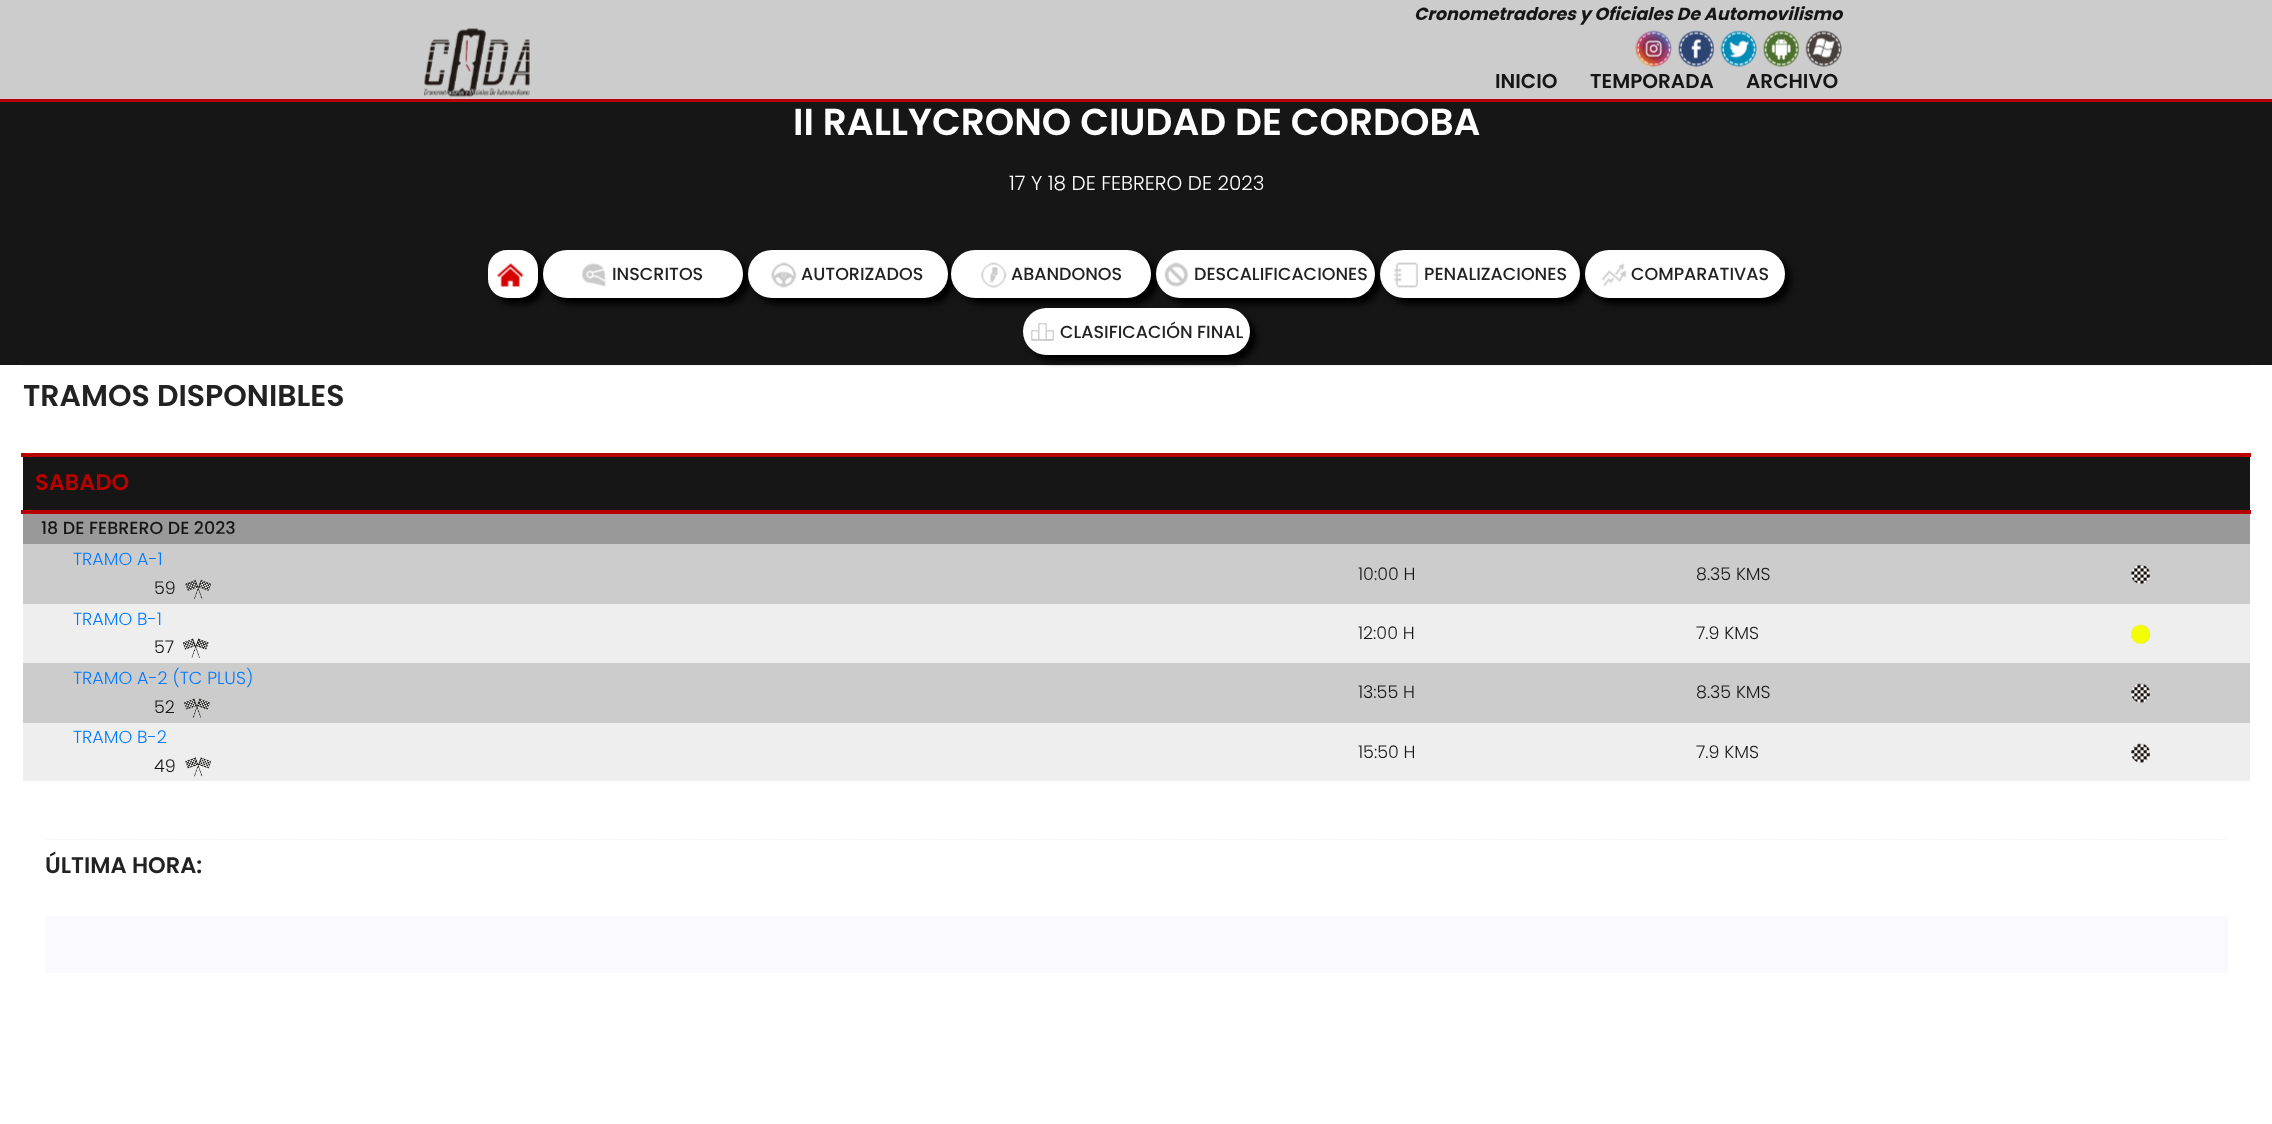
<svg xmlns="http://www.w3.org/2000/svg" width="2272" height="1124">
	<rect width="100%" height="100%" fill="#FFFFFF" />
	<rect x="0" y="0" width="2272" height="99" fill="#CCCCCC" />
	<rect x="0" y="99" width="2272" height="3" fill="#B80000" />
	<text x="1414" y="20" font-family="Poppins" font-size="17.5" font-weight="700" font-style="italic" fill="#161616">Cronometradores y Oficiales De Automovilismo</text>
	<image x="424" y="28" width="106" height="69" href="assets/img1.png" />
	<image x="1635" y="29" width="37" height="38" href="assets/img2.png" />
	<image x="1678" y="30" width="36" height="37" href="assets/img3.png" />
	<image x="1720" y="30" width="37" height="37" href="assets/img4.png" />
	<image x="1763" y="30" width="36" height="37" href="assets/img5.png" />
	<image x="1805" y="30" width="37" height="37" href="assets/img6.png" />
	<g font-family="Poppins" font-size="20" font-weight="600" fill="#161616">
		<text x="1495" y="88">INICIO</text>
		<text x="1590" y="88">TEMPORADA</text>
		<text x="1746" y="88">ARCHIVO</text>
	</g>
	<rect x="0" y="102" width="2272" height="263" fill="#161616" />
	<text x="793" y="135" font-family="Poppins" font-size="37.5" font-weight="600" fill="#FFFFFF">II RALLYCRONO CIUDAD DE CORDOBA</text>
	<text x="1009" y="190" font-family="Poppins" font-size="20" font-weight="300" fill="#FFFFFF">17 Y 18 DE FEBRERO DE 2023</text>
	<rect x="494" y="256" width="50" height="48" rx="19" fill="#000000" filter="blur(3px)" />
	<rect x="488" y="250" width="50" height="48" rx="19" fill="#FFFFFF" />
	<image x="497" y="263" width="26" height="24" href="assets/img7.png" />
	<rect x="549" y="256" width="200" height="48" rx="24" fill="#000000" filter="blur(3px)" />
	<rect x="543" y="250" width="200" height="48" rx="24" fill="#FFFFFF" />
	<image x="582" y="263" width="24" height="24" href="assets/img8.png" />
	<text x="612" y="280" font-family="Poppins" font-size="17.5" font-weight="500" fill="#222222">INSCRITOS</text>
	<rect x="754" y="256" width="200" height="48" rx="24" fill="#000000" filter="blur(3px)" />
	<rect x="748" y="250" width="200" height="48" rx="24" fill="#FFFFFF" />
	<image x="771" y="262" width="26" height="26" href="assets/img9.png" />
	<text x="801" y="280" font-family="Poppins" font-size="17.5" font-weight="500" fill="#222222">AUTORIZADOS</text>
	<rect x="958" y="256" width="200" height="48" rx="24" fill="#000000" filter="blur(3px)" />
	<rect x="951" y="250" width="200" height="48" rx="24" fill="#FFFFFF" />
	<image x="981" y="262" width="26" height="26" href="assets/img10.png" />
	<text x="1011" y="280" font-family="Poppins" font-size="17.5" font-weight="500" fill="#222222">ABANDONOS</text>
	<rect x="1163" y="256" width="218" height="48" rx="24" fill="#000000" filter="blur(3px)" />
	<rect x="1156" y="250" width="219" height="48" rx="24" fill="#FFFFFF" />
	<image x="1164" y="262" width="24" height="25" href="assets/img11.png" />
	<text x="1194" y="280" font-family="Poppins" font-size="17.5" font-weight="500" fill="#222222">DESCALIFICACIONES</text>
	<rect x="1386" y="256" width="200" height="48" rx="24" fill="#000000" filter="blur(3px)" />
	<rect x="1380" y="250" width="200" height="48" rx="24" fill="#FFFFFF" />
	<image x="1393" y="262" width="25" height="26" href="assets/img12.png" />
	<text x="1424" y="280" font-family="Poppins" font-size="17.5" font-weight="500" fill="#222222">PENALIZACIONES</text>
	<rect x="1591" y="256" width="200" height="48" rx="24" fill="#000000" filter="blur(3px)" />
	<rect x="1585" y="250" width="200" height="48" rx="24" fill="#FFFFFF" />
	<image x="1601" y="263" width="26" height="24" href="assets/img13.png" />
	<text x="1631" y="280" font-family="Poppins" font-size="17.5" font-weight="500" fill="#222222">COMPARATIVAS</text>
	<path d="M22.5 365.5H2250" fill="none" stroke="#EEEEEE" stroke-width="1.2" stroke-dasharray="1.25 1.25" />
	<rect x="1029" y="314" width="227" height="47" rx="23.5" fill="#000000" filter="blur(3px)" />
	<rect x="1023" y="308" width="227" height="47" rx="23.5" fill="#FFFFFF" />
	<image x="1031" y="323" width="23" height="18" href="assets/img14.png" />
	<text x="1060" y="338" font-family="Poppins" font-size="17.5" font-weight="500" fill="#222222">CLASIFICACIÓN FINAL</text>
	<text x="23" y="406" font-family="Poppins" font-size="30" font-weight="600" fill="#222222">TRAMOS DISPONIBLES</text>
	<rect x="23" y="457" width="2227" height="53" fill="#161616" />
	<rect x="21" y="453" width="2230" height="4" fill="#B80000" />
	<rect x="21" y="510" width="2230" height="4" fill="#B80000" />
	<text x="35" y="490" font-family="Poppins" font-size="22.5" font-weight="600" fill="#B80000">SABADO</text>
	<rect x="23" y="514" width="2227" height="30" fill="#999999" />
	<text x="41" y="534" font-family="Poppins" font-size="17.5" font-weight="500" fill="#161616">18 DE FEBRERO DE 2023</text>
	<rect x="23" y="544" width="2227" height="60" fill="#CCCCCC" />
	<text x="73" y="565" font-family="Poppins" font-size="17.5" font-weight="300" fill="#007BFF">TRAMO A-1</text>
	<text x="154" y="594" font-family="Poppins" font-size="17.5" font-weight="300" fill="#161616">59</text>
	<image x="185" y="579" width="26" height="20" href="assets/img15.png" />
	<g font-family="Poppins" font-size="17.5" font-weight="300" fill="#161616">
		<text x="1358" y="580">10:00 H</text>
		<text x="1696" y="580">8.35 KMS</text>
	</g>
	<image x="2131" y="565" width="19" height="19" href="assets/img16.png" />
	<rect x="23" y="604" width="2227" height="59" fill="#EEEEEE" />
	<text x="73" y="625" font-family="Poppins" font-size="17.5" font-weight="300" fill="#007BFF">TRAMO B-1</text>
	<text x="154" y="653" font-family="Poppins" font-size="17.5" font-weight="300" fill="#161616">57</text>
	<image x="182" y="638" width="27" height="20" href="assets/img17.png" />
	<g font-family="Poppins" font-size="17.5" font-weight="300" fill="#161616">
		<text x="1358" y="639">12:00 H</text>
		<text x="1696" y="639">7.9 KMS</text>
	</g>
	<image x="2131" y="625" width="19" height="19" href="assets/img18.png" />
	<rect x="23" y="663" width="2227" height="60" fill="#CCCCCC" />
	<text x="73" y="684" font-family="Poppins" font-size="17.5" font-weight="300" fill="#007BFF">TRAMO A-2 (TC PLUS)</text>
	<text x="154" y="713" font-family="Poppins" font-size="17.5" font-weight="300" fill="#161616">52</text>
	<image x="184" y="698" width="26" height="20" href="assets/img19.png" />
	<g font-family="Poppins" font-size="17.5" font-weight="300" fill="#161616">
		<text x="1358" y="698">13:55 H</text>
		<text x="1696" y="698">8.35 KMS</text>
	</g>
	<image x="2131" y="683" width="19" height="20" href="assets/img20.png" />
	<rect x="23" y="723" width="2227" height="58" fill="#EEEEEE" />
	<text x="73" y="743" font-family="Poppins" font-size="17.5" font-weight="300" fill="#007BFF">TRAMO B-2</text>
	<text x="154" y="772" font-family="Poppins" font-size="17.5" font-weight="300" fill="#161616">49</text>
	<image x="185" y="757" width="26" height="20" href="assets/img21.png" />
	<g font-family="Poppins" font-size="17.5" font-weight="300" fill="#161616">
		<text x="1358" y="758">15:50 H</text>
		<text x="1696" y="758">7.9 KMS</text>
	</g>
	<image x="2131" y="743" width="19" height="20" href="assets/img22.png" />
	<path d="M45 839.5H2227.5" fill="none" stroke="#EEEEEE" stroke-width="1.2" stroke-dasharray="1.25 1.25" />
	<text x="45" y="873" font-family="Poppins" font-size="22.5" font-weight="600" fill="#222222">ÚLTIMA HORA:</text>
	<rect x="45" y="916" width="2183" height="57" fill="#F9F9FF" />
</svg>
